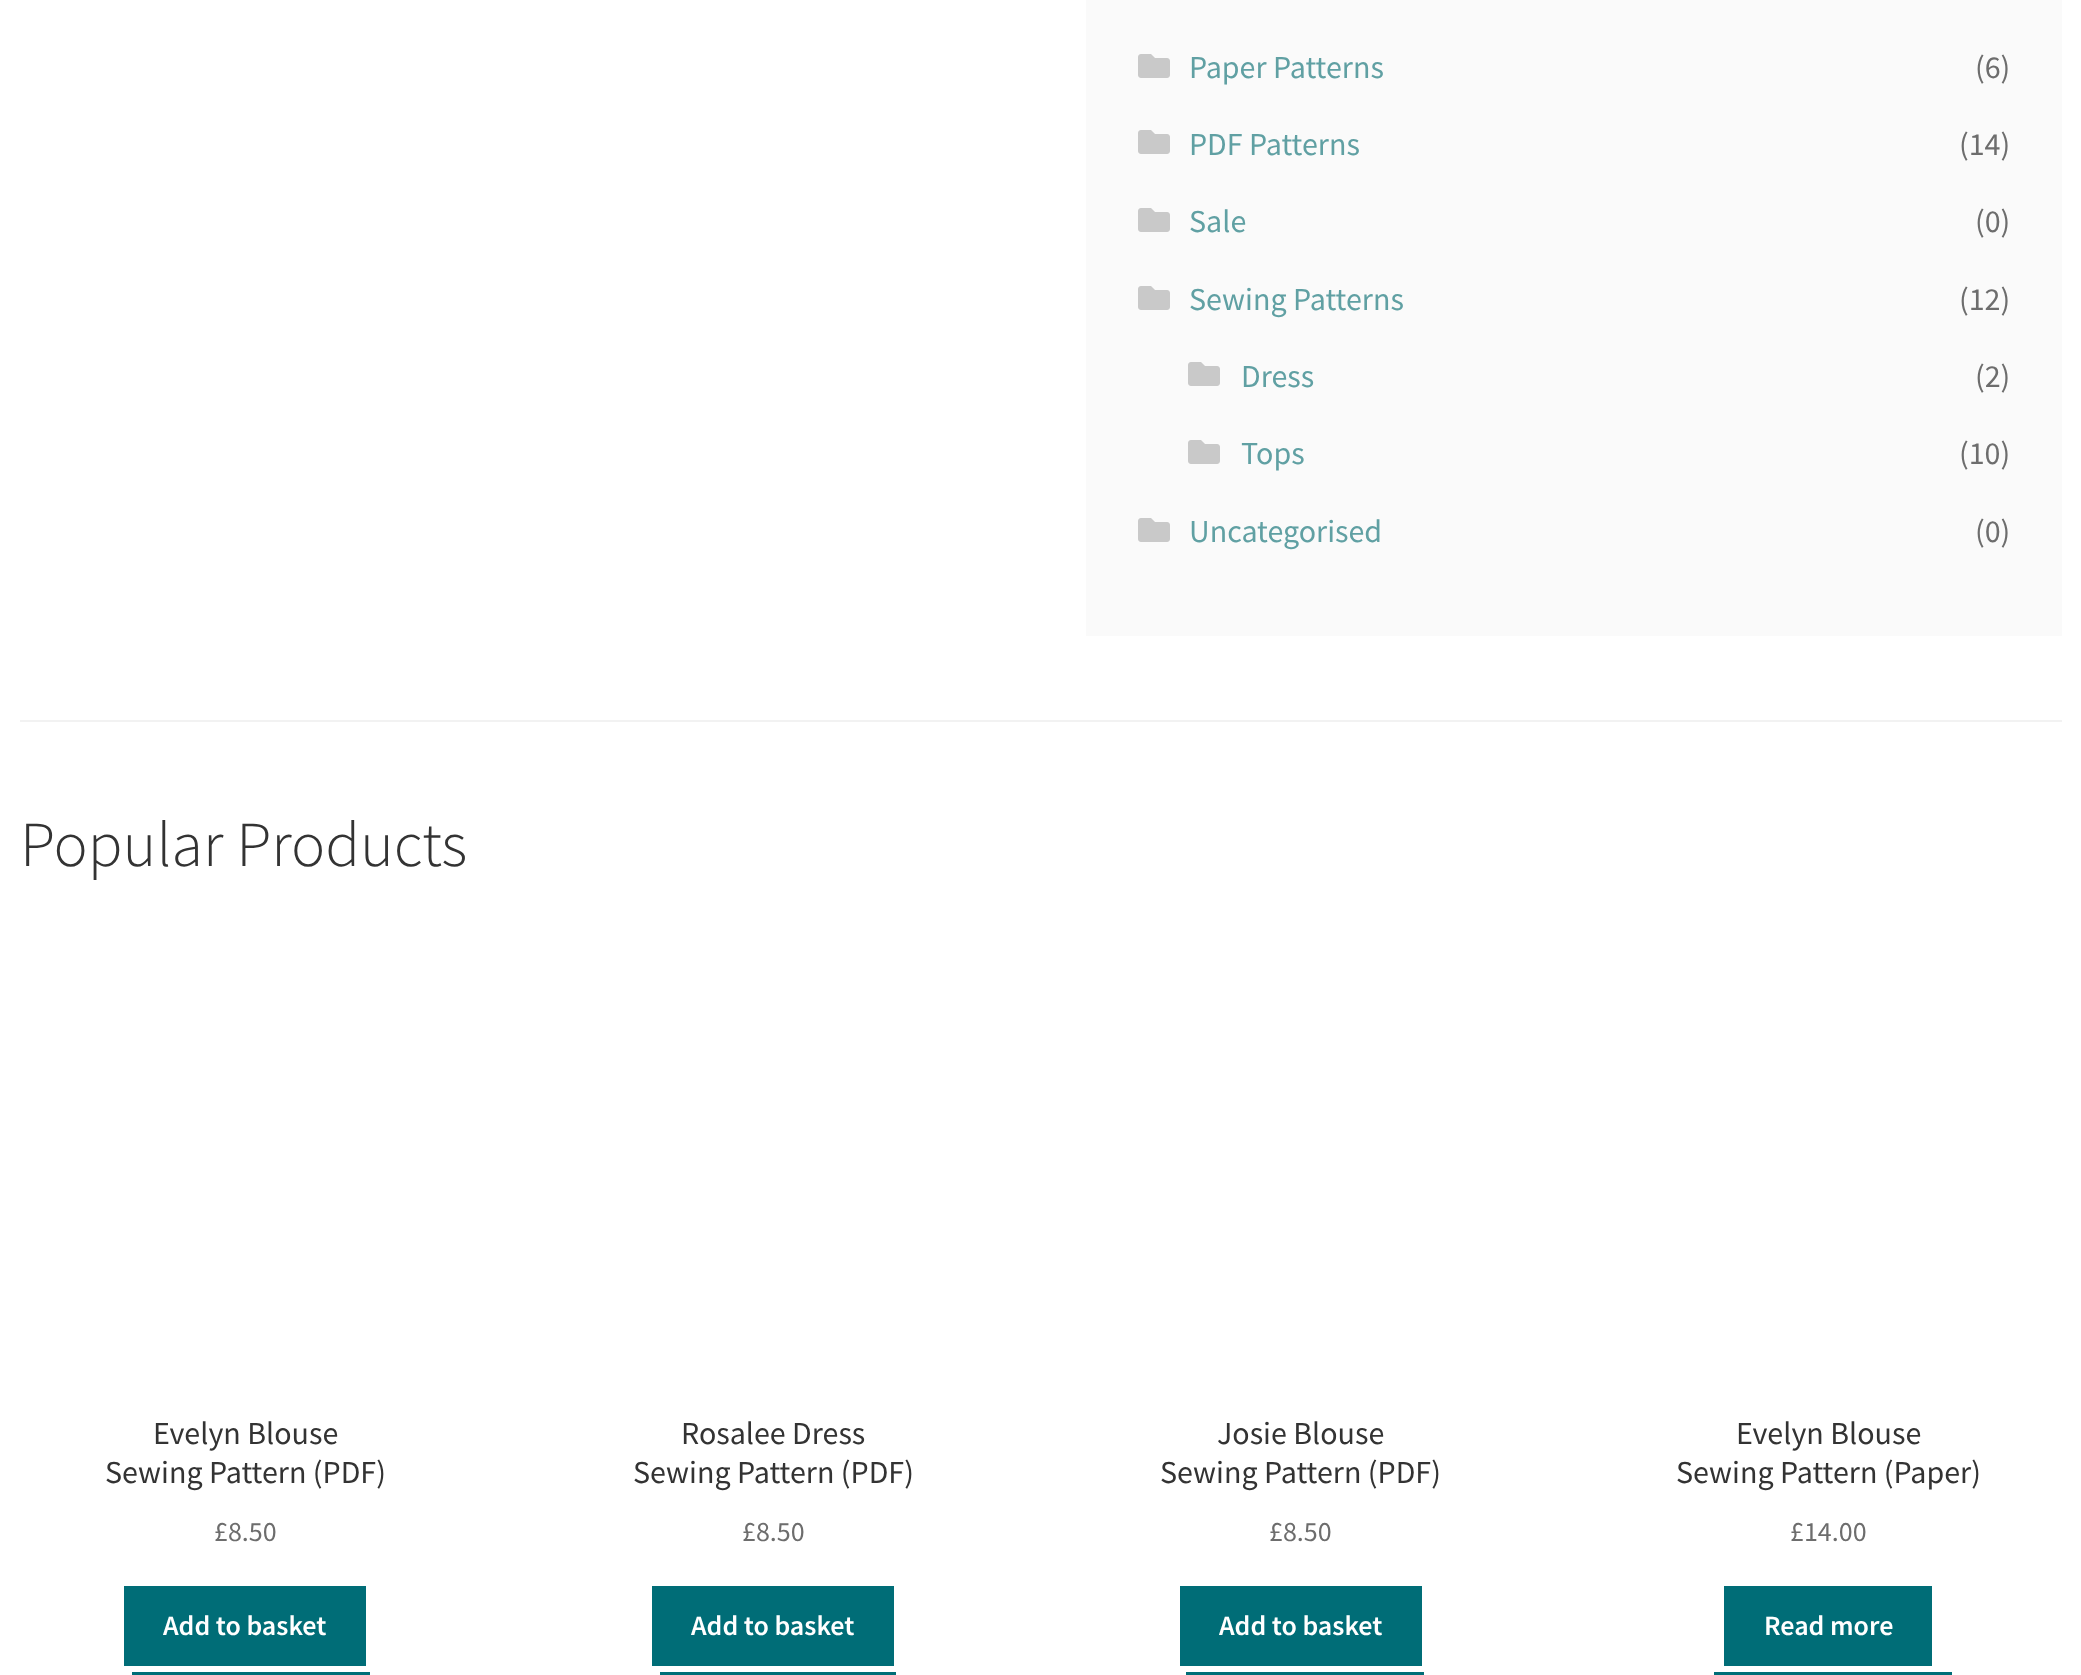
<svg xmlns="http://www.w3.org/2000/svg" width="2081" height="1675">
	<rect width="100%" height="100%" fill="#FFFFFF" />
	<rect x="20" y="720" width="2042" height="2" fill="#F2F2F2" />
	<rect x="1086" y="0" width="976" height="636" fill="#FAFAFA" />
	<image x="1138" y="54" width="32" height="24" href="assets/img1.png" />
	<text x="1189" y="78" font-family="Source Sans Pro" font-size="32" fill="#60A0A3">Paper Patterns</text>
	<text x="1975" y="78" font-family="Source Sans Pro" font-size="32" fill="#6D6D6D">(6)</text>
	<image x="1138" y="130" width="32" height="24" href="assets/img1.png" />
	<text x="1189" y="155" font-family="Source Sans Pro" font-size="32" fill="#60A0A3">PDF Patterns</text>
	<text x="1959" y="155" font-family="Source Sans Pro" font-size="32" fill="#6D6D6D">(14)</text>
	<image x="1138" y="208" width="32" height="24" href="assets/img1.png" />
	<text x="1189" y="232" font-family="Source Sans Pro" font-size="32" fill="#60A0A3">Sale</text>
	<text x="1975" y="232" font-family="Source Sans Pro" font-size="32" fill="#6D6D6D">(0)</text>
	<image x="1138" y="286" width="32" height="24" href="assets/img1.png" />
	<text x="1189" y="310" font-family="Source Sans Pro" font-size="32" fill="#60A0A3">Sewing Patterns</text>
	<text x="1959" y="310" font-family="Source Sans Pro" font-size="32" fill="#6D6D6D">(12)</text>
	<image x="1188" y="362" width="32" height="24" href="assets/img1.png" />
	<text x="1241" y="387" font-family="Source Sans Pro" font-size="32" fill="#60A0A3">Dress</text>
	<text x="1975" y="387" font-family="Source Sans Pro" font-size="32" fill="#6D6D6D">(2)</text>
	<image x="1188" y="440" width="32" height="24" href="assets/img1.png" />
	<text x="1241" y="464" font-family="Source Sans Pro" font-size="32" fill="#60A0A3">Tops</text>
	<text x="1959" y="464" font-family="Source Sans Pro" font-size="32" fill="#6D6D6D">(10)</text>
	<image x="1138" y="518" width="32" height="24" href="assets/img1.png" />
	<text x="1189" y="542" font-family="Source Sans Pro" font-size="32" fill="#60A0A3">Uncategorised</text>
	<text x="1975" y="542" font-family="Source Sans Pro" font-size="32" fill="#6D6D6D">(0)</text>
	<text x="20" y="866" font-family="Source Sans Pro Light" font-size="64" font-weight="300" fill="#333333">Popular Products</text>
	<g font-family="Source Sans Pro" font-size="32" fill="#333333">
		<text x="153" y="1444">Evelyn Blouse</text>
		<text x="105" y="1483">Sewing Pattern (PDF)</text>
	</g>
	<text x="214" y="1541" font-family="Source Sans Pro" font-size="28" fill="#6D6D6D">£8.50</text>
	<rect x="124" y="1586" width="242" height="80" fill="#006D77" />
	<text x="163" y="1635" font-family="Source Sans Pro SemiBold" font-size="28" font-weight="600" fill="#FFFFFF">Add to basket</text>
	<rect x="132" y="1672" width="238" height="3" fill="#006D77" />
	<g font-family="Source Sans Pro" font-size="32" fill="#333333">
		<text x="681" y="1444">Rosalee Dress</text>
		<text x="633" y="1483">Sewing Pattern (PDF)</text>
	</g>
	<text x="742" y="1541" font-family="Source Sans Pro" font-size="28" fill="#6D6D6D">£8.50</text>
	<rect x="652" y="1586" width="242" height="80" fill="#006D77" />
	<text x="691" y="1635" font-family="Source Sans Pro SemiBold" font-size="28" font-weight="600" fill="#FFFFFF">Add to basket</text>
	<rect x="660" y="1672" width="236" height="3" fill="#006D77" />
	<g font-family="Source Sans Pro" font-size="32" fill="#333333">
		<text x="1217" y="1444">Josie Blouse</text>
		<text x="1160" y="1483">Sewing Pattern (PDF)</text>
	</g>
	<text x="1269" y="1541" font-family="Source Sans Pro" font-size="28" fill="#6D6D6D">£8.50</text>
	<rect x="1180" y="1586" width="242" height="80" fill="#006D77" />
	<text x="1219" y="1635" font-family="Source Sans Pro SemiBold" font-size="28" font-weight="600" fill="#FFFFFF">Add to basket</text>
	<rect x="1186" y="1672" width="238" height="3" fill="#006D77" />
	<g font-family="Source Sans Pro" font-size="32" fill="#333333">
		<text x="1736" y="1444">Evelyn Blouse</text>
		<text x="1676" y="1483">Sewing Pattern (Paper)</text>
	</g>
	<text x="1790" y="1541" font-family="Source Sans Pro" font-size="28" fill="#6D6D6D">£14.00</text>
	<rect x="1724" y="1586" width="208" height="80" fill="#006D77" />
	<text x="1764" y="1635" font-family="Source Sans Pro SemiBold" font-size="28" font-weight="600" fill="#FFFFFF">Read more</text>
	<rect x="1714" y="1672" width="238" height="3" fill="#006D77" />
</svg>
